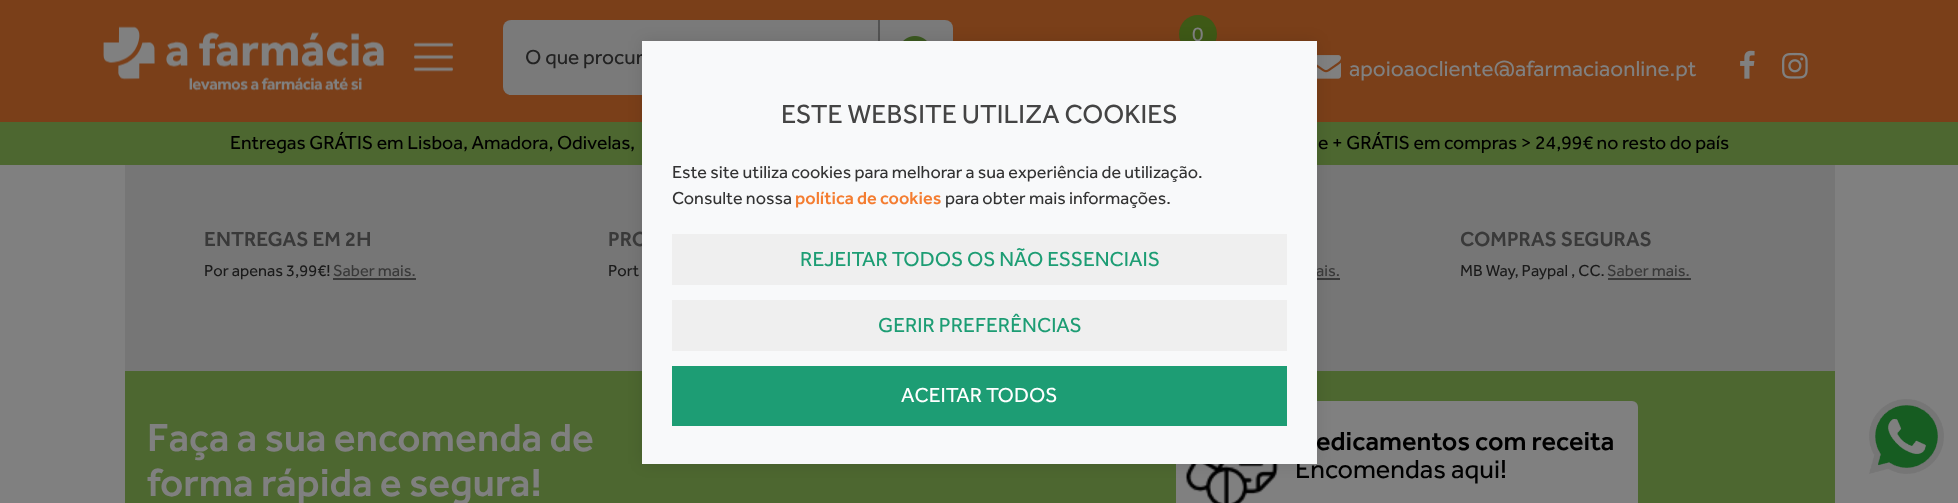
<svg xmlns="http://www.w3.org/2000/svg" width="1958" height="503">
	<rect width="100%" height="100%" fill="#808080" />
	<rect x="0" y="0" width="1958" height="122" fill="#7A3F19" />
	<image x="103" y="26" width="281" height="65" href="assets/img1.png" />
	<image x="414" y="42" width="39" height="30" href="assets/img2.png" />
	<circle cx="1198" cy="34" r="19" fill="#3E5916" />
	<text x="1192" y="41" font-family="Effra" font-size="21" fill="#808080">0</text>
	<rect x="503" y="20" width="450" height="75" rx="8" fill="#7A7A7A" />
	<rect x="878" y="20" width="2" height="21" fill="#535353" />
	<image x="903" y="36" width="24" height="5" href="assets/img3.png" />
	<text x="525" y="64" font-family="Effra" font-size="21" fill="#222222">O que procur</text>
	<image x="1317" y="55" width="24" height="24" href="assets/img4.png" />
	<text x="1349" y="76" font-family="Effra" font-size="22.5" fill="#808080">apoioaocliente@afarmaciaonline.pt</text>
	<image x="1740" y="50" width="15" height="29" href="assets/img5.png" />
	<image x="1782" y="52" width="26" height="27" href="assets/img6.png" />
	<rect x="0" y="122" width="1958" height="43" fill="#4D6730" />
	<g font-family="Effra" font-size="19.5" fill="#000000">
		<text x="230" y="149">Entregas GRÁTIS em Lisboa, Amadora, Odivelas,</text>
		<text x="1318" y="149">e + GRÁTIS em compras &gt; 24,99€ no resto do país</text>
	</g>
	<rect x="125" y="165" width="1710" height="206" fill="#767676" />
	<rect x="1317" y="278" width="23" height="2" fill="#393939" />
	<rect x="125" y="371" width="1710" height="132" fill="#4D6730" />
	<rect x="1176" y="401" width="462" height="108" rx="6" fill="#808080" />
	<image x="1185" y="464" width="94" height="39" href="assets/img7.png" />
	<rect x="642" y="41" width="675" height="423" fill="#000000" fill-opacity="0.1" filter="blur(7.5px)" />
	<text x="608" y="246" font-family="Effra" font-size="21" font-weight="500" fill="#393939">PRO</text>
	<text x="1316" y="276" font-family="Effra" font-size="16.5" fill="#393939">ais.</text>
	<text x="1295" y="478" font-family="Effra" font-size="27" fill="#000000">Encomendas aqui!</text>
	<rect x="642" y="41" width="675" height="423" fill="#F8F9FA" />
	<text x="781" y="123" font-family="Effra" font-size="27" fill="#444444">ESTE WEBSITE UTILIZA COOKIES</text>
	<g font-family="Effra" font-size="18" fill="#333333">
		<text x="672" y="178">Este site utiliza cookies para melhorar a sua experiência de utilização.</text>
		<text x="672" y="204">Consulte nossa</text>
	</g>
	<text x="795" y="204" font-family="Effra" font-size="18" font-weight="500" fill="#F47D31">política de cookies</text>
	<text x="945" y="204" font-family="Effra" font-size="18" fill="#333333">para obter mais informações.</text>
	<rect x="672" y="234" width="615" height="51" fill="#EFEFEF" />
	<text x="800" y="266" font-family="Effra" font-size="21" fill="#1D9D74">REJEITAR TODOS OS NÃO ESSENCIAIS</text>
	<rect x="672" y="300" width="615" height="51" fill="#EFEFEF" />
	<text x="878" y="332" font-family="Effra" font-size="21" fill="#1D9D74">GERIR PREFERÊNCIAS</text>
	<rect x="672" y="366" width="615" height="60" fill="#1D9D74" />
	<text x="901" y="402" font-family="Effra" font-size="21" fill="#FFFFFF">ACEITAR TODOS</text>
	<text x="204" y="246" font-family="Effra" font-size="21" font-weight="500" fill="#393939">ENTREGAS EM 2H</text>
	<text x="204" y="276" font-family="Effra" font-size="16.5" fill="#1A1A1A">Por apenas 3,99€!</text>
	<rect x="333" y="278" width="83" height="2" fill="#393939" />
	<text x="333" y="276" font-family="Effra" font-size="16.5" fill="#393939">Saber mais.</text>
	<text x="608" y="276" font-family="Effra" font-size="16.5" fill="#1A1A1A">Port</text>
	<text x="1460" y="246" font-family="Effra" font-size="21" font-weight="500" fill="#393939">COMPRAS SEGURAS</text>
	<text x="1460" y="276" font-family="Effra" font-size="16.5" fill="#1A1A1A">MB Way, Paypal , CC.</text>
	<text x="1607" y="276" font-family="Effra" font-size="16.5" fill="#393939">Saber mais.</text>
	<rect x="1608" y="278" width="83" height="2" fill="#393939" />
	<g font-family="Effra" font-size="40.5" font-weight="500" fill="#808080">
		<text x="147" y="451">Faça a sua encomenda de</text>
		<text x="147" y="496">forma rápida e segura!</text>
	</g>
	<text x="1316" y="450" font-family="Effra" font-size="27" font-weight="500" fill="#000000">edicamentos com receita</text>
	<image x="1869" y="399" width="75" height="75" href="assets/img8.png" />
</svg>
